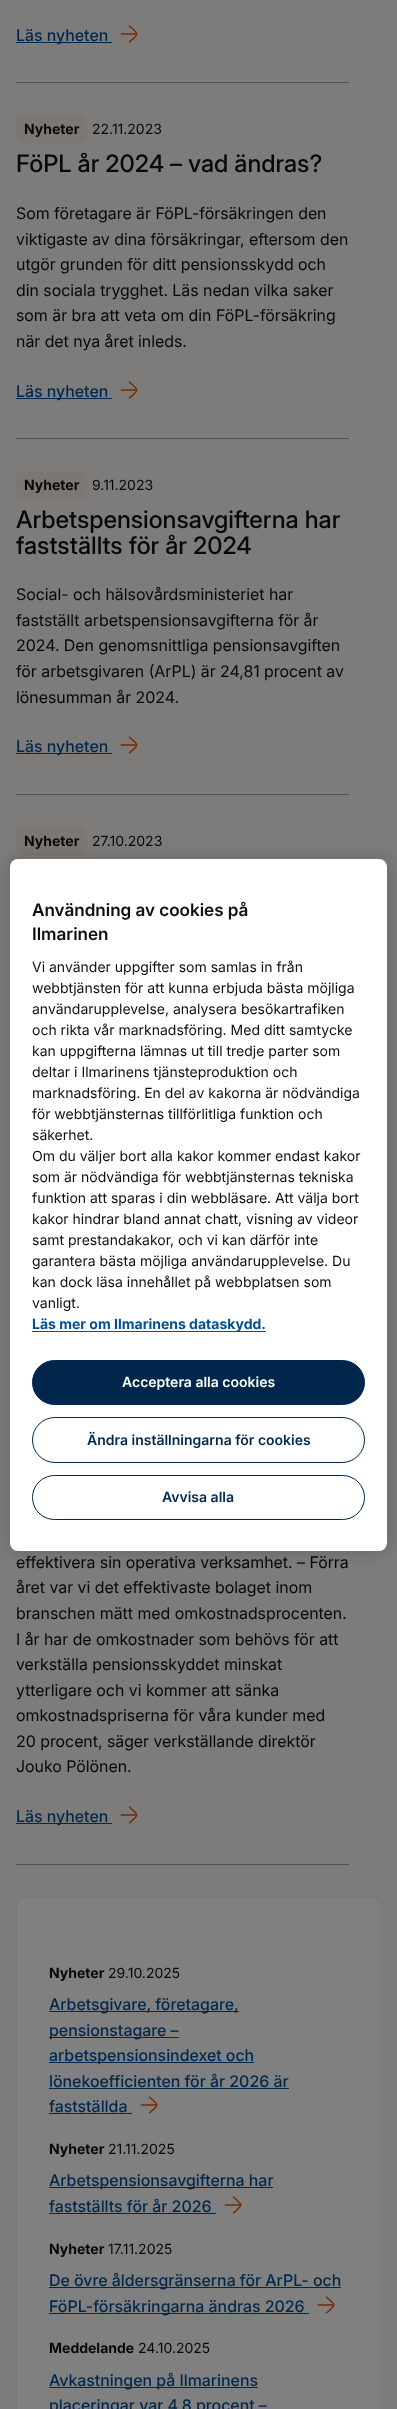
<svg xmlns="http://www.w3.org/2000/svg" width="397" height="2409">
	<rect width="100%" height="100%" fill="#7E7C7A" />
	<rect x="16" y="82" width="333" height="1" fill="#515151" />
	<rect x="16" y="42" width="96" height="1" fill="#00284D" />
	<text x="16" y="41" font-family="Inter" font-size="16" font-weight="500" fill="#00284D">Läs nyheten</text>
	<image x="120" y="25" width="18" height="18" href="assets/img1.png" />
	<rect x="16" y="438" width="333" height="1" fill="#515151" />
	<rect x="16" y="115" width="71" height="28" rx="8" fill="#7C7772" />
	<text x="24" y="134" font-family="Inter" font-size="14" font-weight="700" fill="#080808">Nyheter</text>
	<text x="92" y="134" font-family="Inter" font-size="14" fill="#080808">22.11.2023</text>
	<text x="16" y="172" font-family="'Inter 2'" font-size="24" font-weight="500" fill="#080808">FöPL år 2024 – vad ändras?</text>
	<g font-family="'Inter 2'" font-size="16" fill="#080808">
		<text x="16" y="219">Som företagare är FöPL-försäkringen den</text>
		<text x="16" y="245">viktigaste av dina försäkringar, eftersom den</text>
		<text x="16" y="270">utgör grunden för ditt pensionsskydd och</text>
		<text x="16" y="296">din sociala trygghet. Läs nedan vilka saker</text>
		<text x="16" y="321">som är bra att veta om din FöPL-försäkring</text>
		<text x="16" y="347">när det nya året inleds.</text>
	</g>
	<rect x="16" y="398" width="96" height="1" fill="#00284D" />
	<text x="16" y="397" font-family="Inter" font-size="16" font-weight="500" fill="#00284D">Läs nyheten</text>
	<image x="120" y="381" width="18" height="18" href="assets/img1.png" />
	<rect x="16" y="794" width="333" height="1" fill="#515151" />
	<rect x="16" y="471" width="71" height="28" rx="8" fill="#7C7772" />
	<text x="24" y="490" font-family="Inter" font-size="14" font-weight="700" fill="#080808">Nyheter</text>
	<text x="92" y="490" font-family="Inter" font-size="14" fill="#080808">9.11.2023</text>
	<g font-family="'Inter 2'" font-size="24" font-weight="500" fill="#080808">
		<text x="16" y="528">Arbetspensionsavgifterna har</text>
		<text x="16" y="554">fastställts för år 2024</text>
	</g>
	<g font-family="'Inter 2'" font-size="16" fill="#080808">
		<text x="16" y="600">Social- och hälsovårdsministeriet har</text>
		<text x="16" y="626">fastställt arbetspensionsavgifterna för år</text>
		<text x="16" y="651">2024. Den genomsnittliga pensionsavgiften</text>
		<text x="16" y="677">för arbetsgivaren (ArPL) är 24,81 procent av</text>
		<text x="16" y="703">lönesumman år 2024.</text>
	</g>
	<rect x="16" y="753" width="96" height="1" fill="#00284D" />
	<text x="16" y="752" font-family="Inter" font-size="16" font-weight="500" fill="#00284D">Läs nyheten</text>
	<image x="120" y="736" width="18" height="18" href="assets/img1.png" />
	<rect x="16" y="827" width="71" height="28" rx="8" fill="#7C7772" />
	<text x="24" y="846" font-family="Inter" font-size="14" font-weight="700" fill="#080808">Nyheter</text>
	<text x="92" y="846" font-family="Inter" font-size="14" fill="#080808">27.10.2023</text>
	<rect x="16" y="1864" width="333" height="1" fill="#515151" />
	<g font-family="'Inter 2'" font-size="16" fill="#080808">
		<text x="16" y="1568">effektivera sin operativa verksamhet. – Förra</text>
		<text x="16" y="1593">året var vi det effektivaste bolaget inom</text>
		<text x="16" y="1619">branschen mätt med omkostnadsprocenten.</text>
		<text x="16" y="1645">I år har de omkostnader som behövs för att</text>
		<text x="16" y="1670">verkställa pensionsskyddet minskat</text>
		<text x="16" y="1696">ytterligare och vi kommer att sänka</text>
		<text x="16" y="1721">omkostnadspriserna för våra kunder med</text>
		<text x="16" y="1747">20 procent, säger verkställande direktör</text>
		<text x="16" y="1772">Jouko Pölönen.</text>
	</g>
	<rect x="16" y="1823" width="96" height="1" fill="#00284D" />
	<text x="16" y="1822" font-family="Inter" font-size="16" font-weight="500" fill="#00284D">Läs nyheten</text>
	<image x="120" y="1806" width="18" height="18" href="assets/img1.png" />
	<rect x="16.5" y="1897.5" width="364" height="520" rx="7.5" fill="#808080" stroke="#787878" />
	<text x="49" y="1978" font-family="Inter" font-size="14" font-weight="700" fill="#080808">Nyheter</text>
	<text x="108" y="1978" font-family="Inter" font-size="14" fill="#080808">29.10.2025</text>
	<rect x="49" y="2011" width="190" height="1" fill="#00284D" />
	<text x="49" y="2010" font-family="Inter" font-size="16" font-weight="500" fill="#00284D">Arbetsgivare, företagare,</text>
	<rect x="49" y="2037" width="130" height="1" fill="#00284D" />
	<text x="49" y="2036" font-family="Inter" font-size="16" font-weight="500" fill="#00284D">pensionstagare –</text>
	<rect x="49" y="2062" width="205" height="1" fill="#00284D" />
	<g font-family="Inter" font-size="16" font-weight="500" fill="#00284D">
		<text x="49" y="2061">arbetspensionsindexet och</text>
		<text x="49" y="2087">lönekoefficienten för år 2026 är</text>
	</g>
	<rect x="49" y="2088" width="240" height="1" fill="#00284D" />
	<text x="49" y="2112" font-family="Inter" font-size="16" font-weight="500" fill="#00284D">fastställda</text>
	<rect x="49" y="2113" width="83" height="1" fill="#00284D" />
	<image x="140" y="2096" width="18" height="18" href="assets/img2.png" />
	<text x="49" y="2154" font-family="Inter" font-size="14" font-weight="700" fill="#080808">Nyheter</text>
	<text x="108" y="2154" font-family="Inter" font-size="14" fill="#080808">21.11.2025</text>
	<rect x="49" y="2187" width="224" height="1" fill="#00284D" />
	<g font-family="Inter" font-size="16" font-weight="500" fill="#00284D">
		<text x="49" y="2186">Arbetspensionsavgifterna har</text>
		<text x="49" y="2212">fastställts för år 2026</text>
	</g>
	<rect x="49" y="2213" width="167" height="1" fill="#00284D" />
	<image x="224" y="2196" width="18" height="18" href="assets/img2.png" />
	<text x="49" y="2254" font-family="Inter" font-size="14" font-weight="700" fill="#080808">Nyheter</text>
	<text x="108" y="2254" font-family="Inter" font-size="14" fill="#080808">17.11.2025</text>
	<rect x="49" y="2287" width="292" height="1" fill="#00284D" />
	<text x="49" y="2286" font-family="Inter" font-size="16" font-weight="500" fill="#00284D">De övre åldersgränserna för ArPL- och</text>
	<rect x="49" y="2313" width="260" height="1" fill="#00284D" />
	<text x="49" y="2312" font-family="Inter" font-size="16" font-weight="500" fill="#00284D">FöPL-försäkringarna ändras 2026</text>
	<image x="317" y="2296" width="18" height="18" href="assets/img2.png" />
	<text x="49" y="2353" font-family="Inter" font-size="14" font-weight="700" fill="#080808">Meddelande</text>
	<text x="138" y="2353" font-family="Inter" font-size="14" fill="#080808">24.10.2025</text>
	<rect x="49" y="2387" width="209" height="1" fill="#00284D" />
	<g font-family="Inter" font-size="16" font-weight="500" fill="#00284D">
		<text x="49" y="2386">Avkastningen på Ilmarinens</text>
		<text x="49" y="2411">placeringar var 4,8 procent –</text>
	</g>
	<rect x="10" y="859" width="377" height="692" rx="8" fill="#000000" fill-opacity="0.2" filter="blur(9px)" />
	<rect x="10" y="859" width="377" height="692" rx="8" fill="#FFFFFF" />
	<g font-family="Inter" font-size="17.25" font-weight="600" fill="#0F0F0F">
		<text x="32" y="916">Användning av cookies på</text>
		<text x="32" y="940">Ilmarinen</text>
	</g>
	<g font-family="Inter" font-size="14" fill="#0F0F0F">
		<text x="32" y="972">Vi använder uppgifter som samlas in från</text>
		<text x="32" y="993">webbtjänsten för att kunna erbjuda bästa möjliga</text>
		<text x="32" y="1014">användarupplevelse, analysera besökartrafiken</text>
		<text x="32" y="1035">och rikta vår marknadsföring. Med ditt samtycke</text>
		<text x="32" y="1056">kan uppgifterna lämnas ut till tredje parter som</text>
		<text x="32" y="1077">deltar i Ilmarinens tjänsteproduktion och</text>
		<text x="32" y="1098">marknadsföring. En del av kakorna är nödvändiga</text>
		<text x="32" y="1119">för webbtjänsternas tillförlitliga funktion och</text>
		<text x="32" y="1140">säkerhet.</text>
		<text x="32" y="1161">Om du väljer bort alla kakor kommer endast kakor</text>
		<text x="32" y="1182">som är nödvändiga för webbtjänsternas tekniska</text>
		<text x="32" y="1203">funktion att sparas i din webbläsare. Att välja bort</text>
		<text x="32" y="1224">kakor hindrar bland annat chatt, visning av videor</text>
		<text x="32" y="1245">samt prestandakakor, och vi kan därför inte</text>
		<text x="32" y="1266">garantera bästa möjliga användarupplevelse. Du</text>
		<text x="32" y="1287">kan dock läsa innehållet på webbplatsen som</text>
		<text x="32" y="1308">vanligt.</text>
	</g>
	<rect x="32" y="1331" width="234" height="1" fill="#005099" />
	<text x="32" y="1329" font-family="Inter" font-size="14" font-weight="700" fill="#005099">Läs mer om Ilmarinens dataskydd.</text>
	<rect x="32.5" y="1360.5" width="332" height="44" rx="22" fill="#00274B" stroke="#00274B" />
	<text x="122" y="1387" font-family="'Inter 2'" font-size="14" font-weight="600" fill="#FFFFFF">Acceptera alla cookies</text>
	<rect x="32.5" y="1417.5" width="332" height="45" rx="22.5" fill="none" stroke="#00274B" />
	<text x="87" y="1445" font-family="'Inter 2'" font-size="14" font-weight="600" fill="#00284D">Ändra inställningarna för cookies</text>
	<rect x="32.5" y="1475.5" width="332" height="44" rx="22" fill="none" stroke="#00274B" />
	<text x="162" y="1502" font-family="'Inter 2'" font-size="14" font-weight="600" fill="#00284D">Avvisa alla</text>
</svg>
